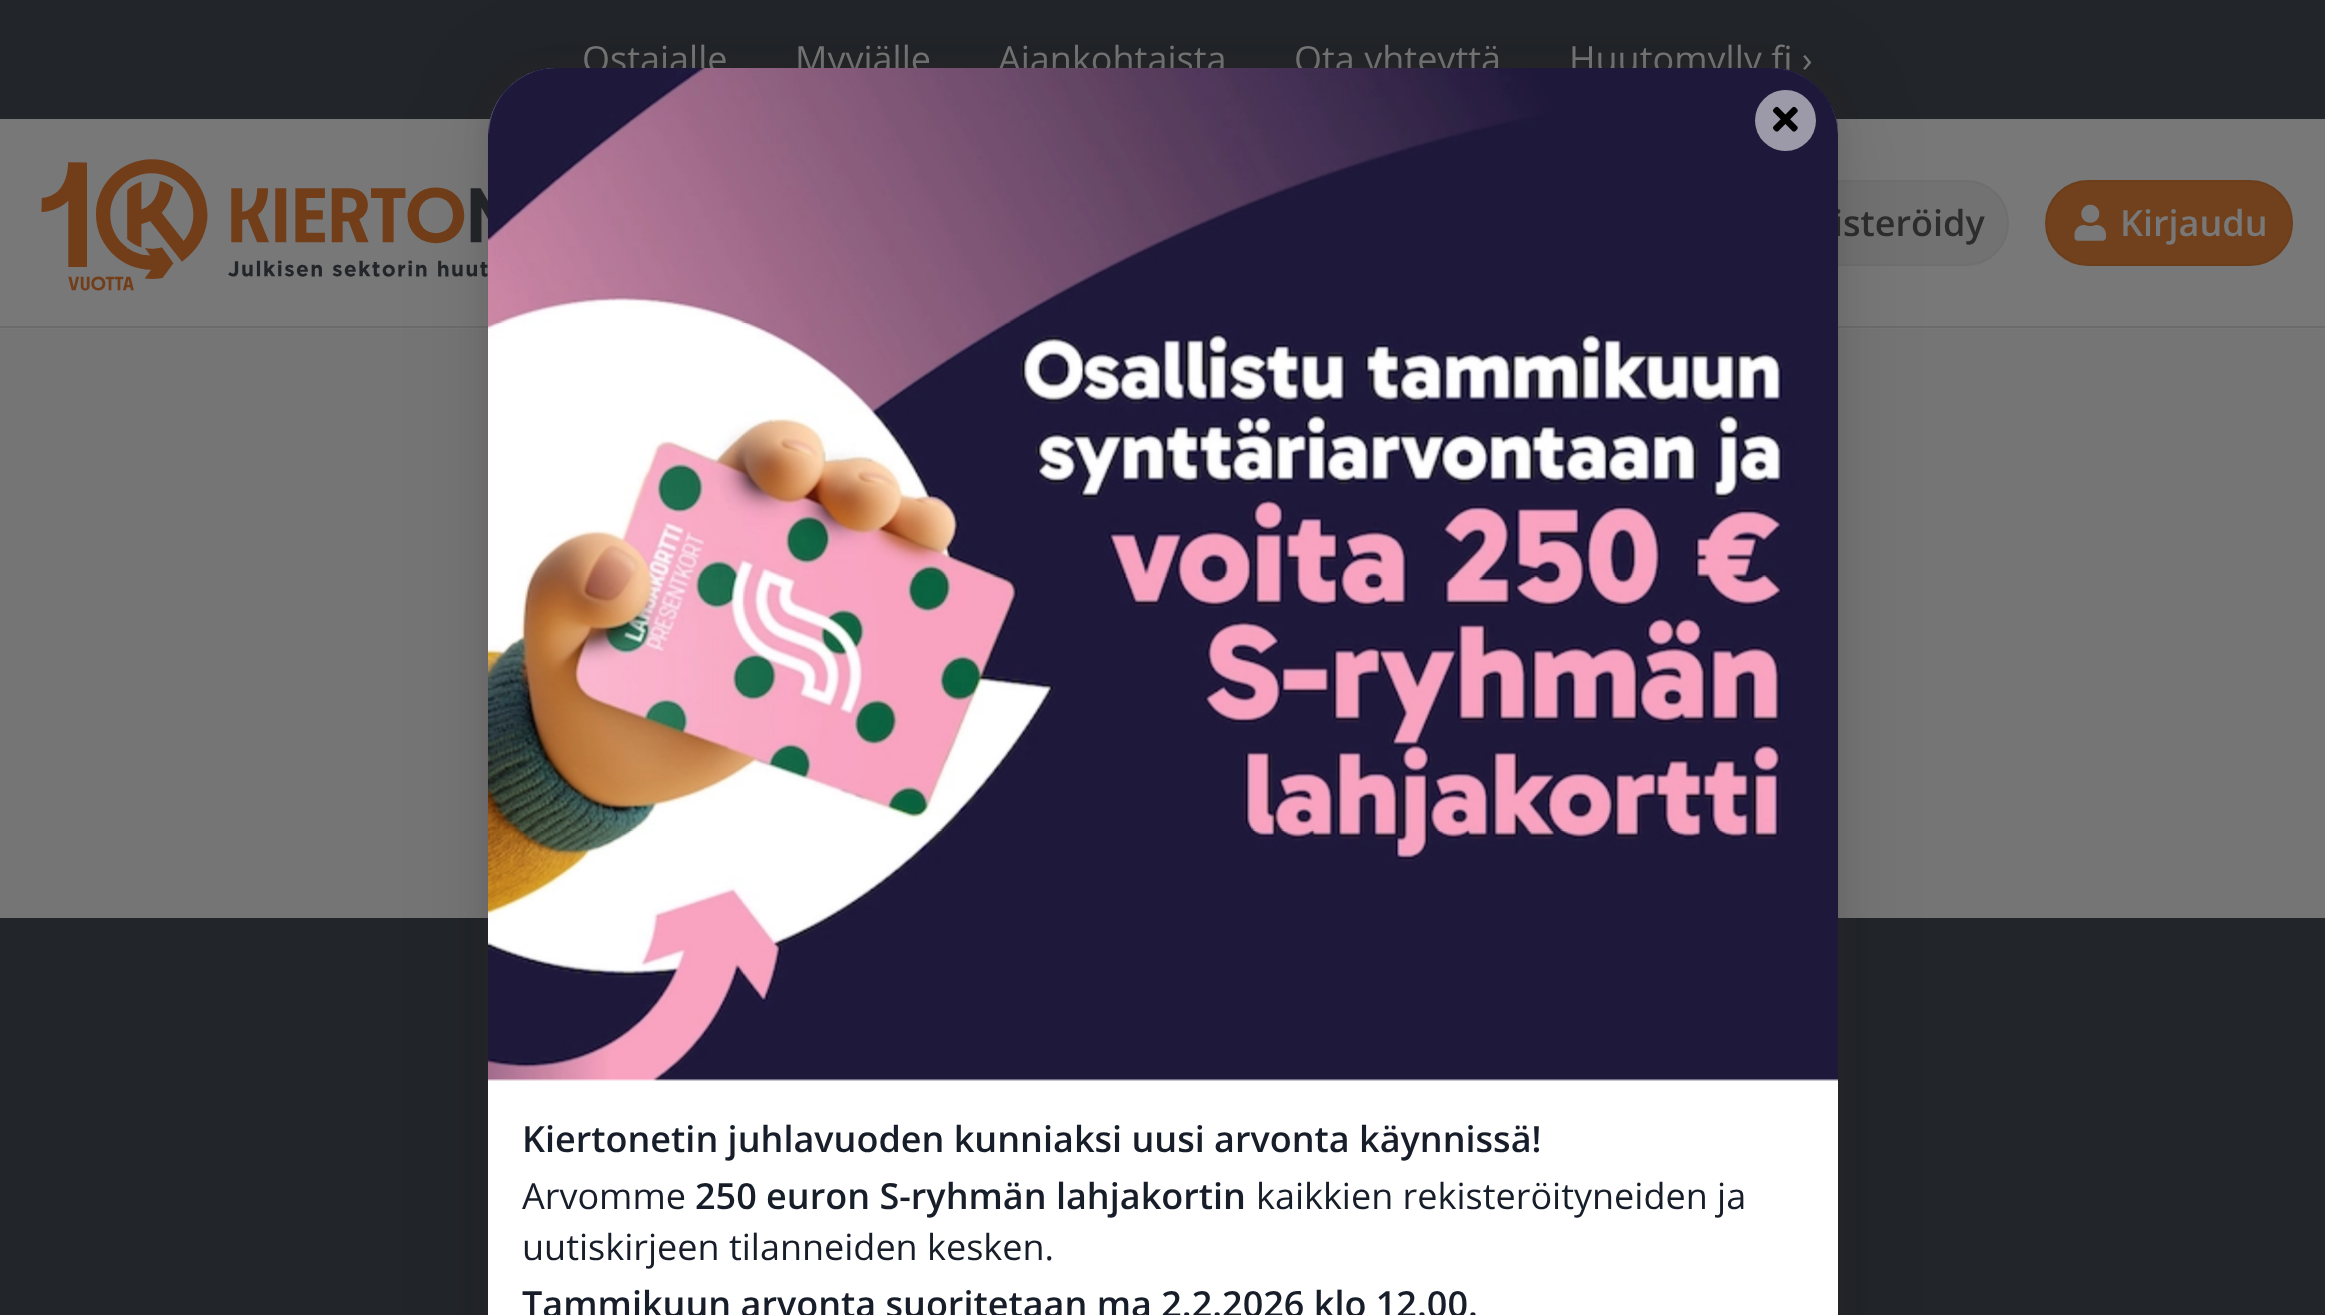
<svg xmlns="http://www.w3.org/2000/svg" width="2325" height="1315">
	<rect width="100%" height="100%" fill="#757575" />
	<rect x="0" y="119" width="2325" height="210" fill="#787878" />
	<rect x="0" y="326" width="2325" height="2" fill="#6C6C6C" />
	<rect x="0" y="0" width="2325" height="119" fill="#222529" />
	<g font-family="Open Sans" font-size="36" fill="#787878">
		<text x="582" y="72">Ostajalle</text>
		<text x="795" y="72">Myyjälle</text>
		<text x="998" y="72">Ajankohtaista</text>
		<text x="1294" y="72">Ota yhteyttä</text>
		<text x="1569" y="72">Huutomylly.fi ›</text>
	</g>
	<image x="41" y="159" width="447" height="132" href="assets/img1.png" />
	<rect x="1695" y="181" width="313" height="84" rx="42" fill="#727272" stroke="#6F6F6F" stroke-width="2" />
	<text x="1833" y="236" font-family="Open Sans" font-size="36" font-weight="600" fill="#2D2D2D">isteröidy</text>
	<rect x="2046" y="181" width="246" height="84" rx="42" fill="#71401C" stroke="#6C3E1C" stroke-width="2" />
	<image x="2074" y="204" width="32" height="37" href="assets/img2.png" />
	<text x="2120" y="236" font-family="Open Sans" font-size="36" font-weight="600" fill="#787878">Kirjaudu</text>
	<rect x="0" y="918" width="2325" height="397" fill="#222529" />
	<rect x="488" y="68" width="1350" height="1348" rx="68" fill="#503838" fill-opacity="0.2" filter="blur(11px)" />
	<rect x="488" y="68" width="1350" height="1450" rx="68" fill="#000000" fill-opacity="0.1" filter="blur(45px)" />
	<path d="M556 68H1770C1807.5 68 1838 98.5 1838 136V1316H488V136C488 98.5 518.5 68 556 68Z" fill="#FFFFFF" />
	<image x="488" y="68" width="1350" height="1013" href="assets/img3.png" />
	<circle cx="1785.5" cy="120.5" r="30.5" fill="#9C9AA9" />
	<image x="1773" y="106" width="25" height="26" href="assets/img4.png" />
	<text x="522" y="1152" font-family="Open Sans" font-size="36" font-weight="600" fill="#171E2A">Kiertonetin juhlavuoden kunniaksi uusi arvonta käynnissä!</text>
	<text x="522" y="1209" font-family="Open Sans" font-size="36" fill="#171E2A">Arvomme</text>
	<text x="695" y="1209" font-family="Open Sans" font-size="36" font-weight="600" fill="#171E2A">250 euron S-ryhmän lahjakortin</text>
	<g font-family="Open Sans" font-size="36" fill="#171E2A">
		<text x="1256" y="1209">kaikkien rekisteröityneiden ja</text>
		<text x="522" y="1260">uutiskirjeen tilanneiden kesken.</text>
	</g>
	<text x="522" y="1317" font-family="Open Sans" font-size="36" font-weight="600" fill="#171E2A">Tammikuun arvonta suoritetaan ma 2.2.2026 klo 12.00.</text>
</svg>
